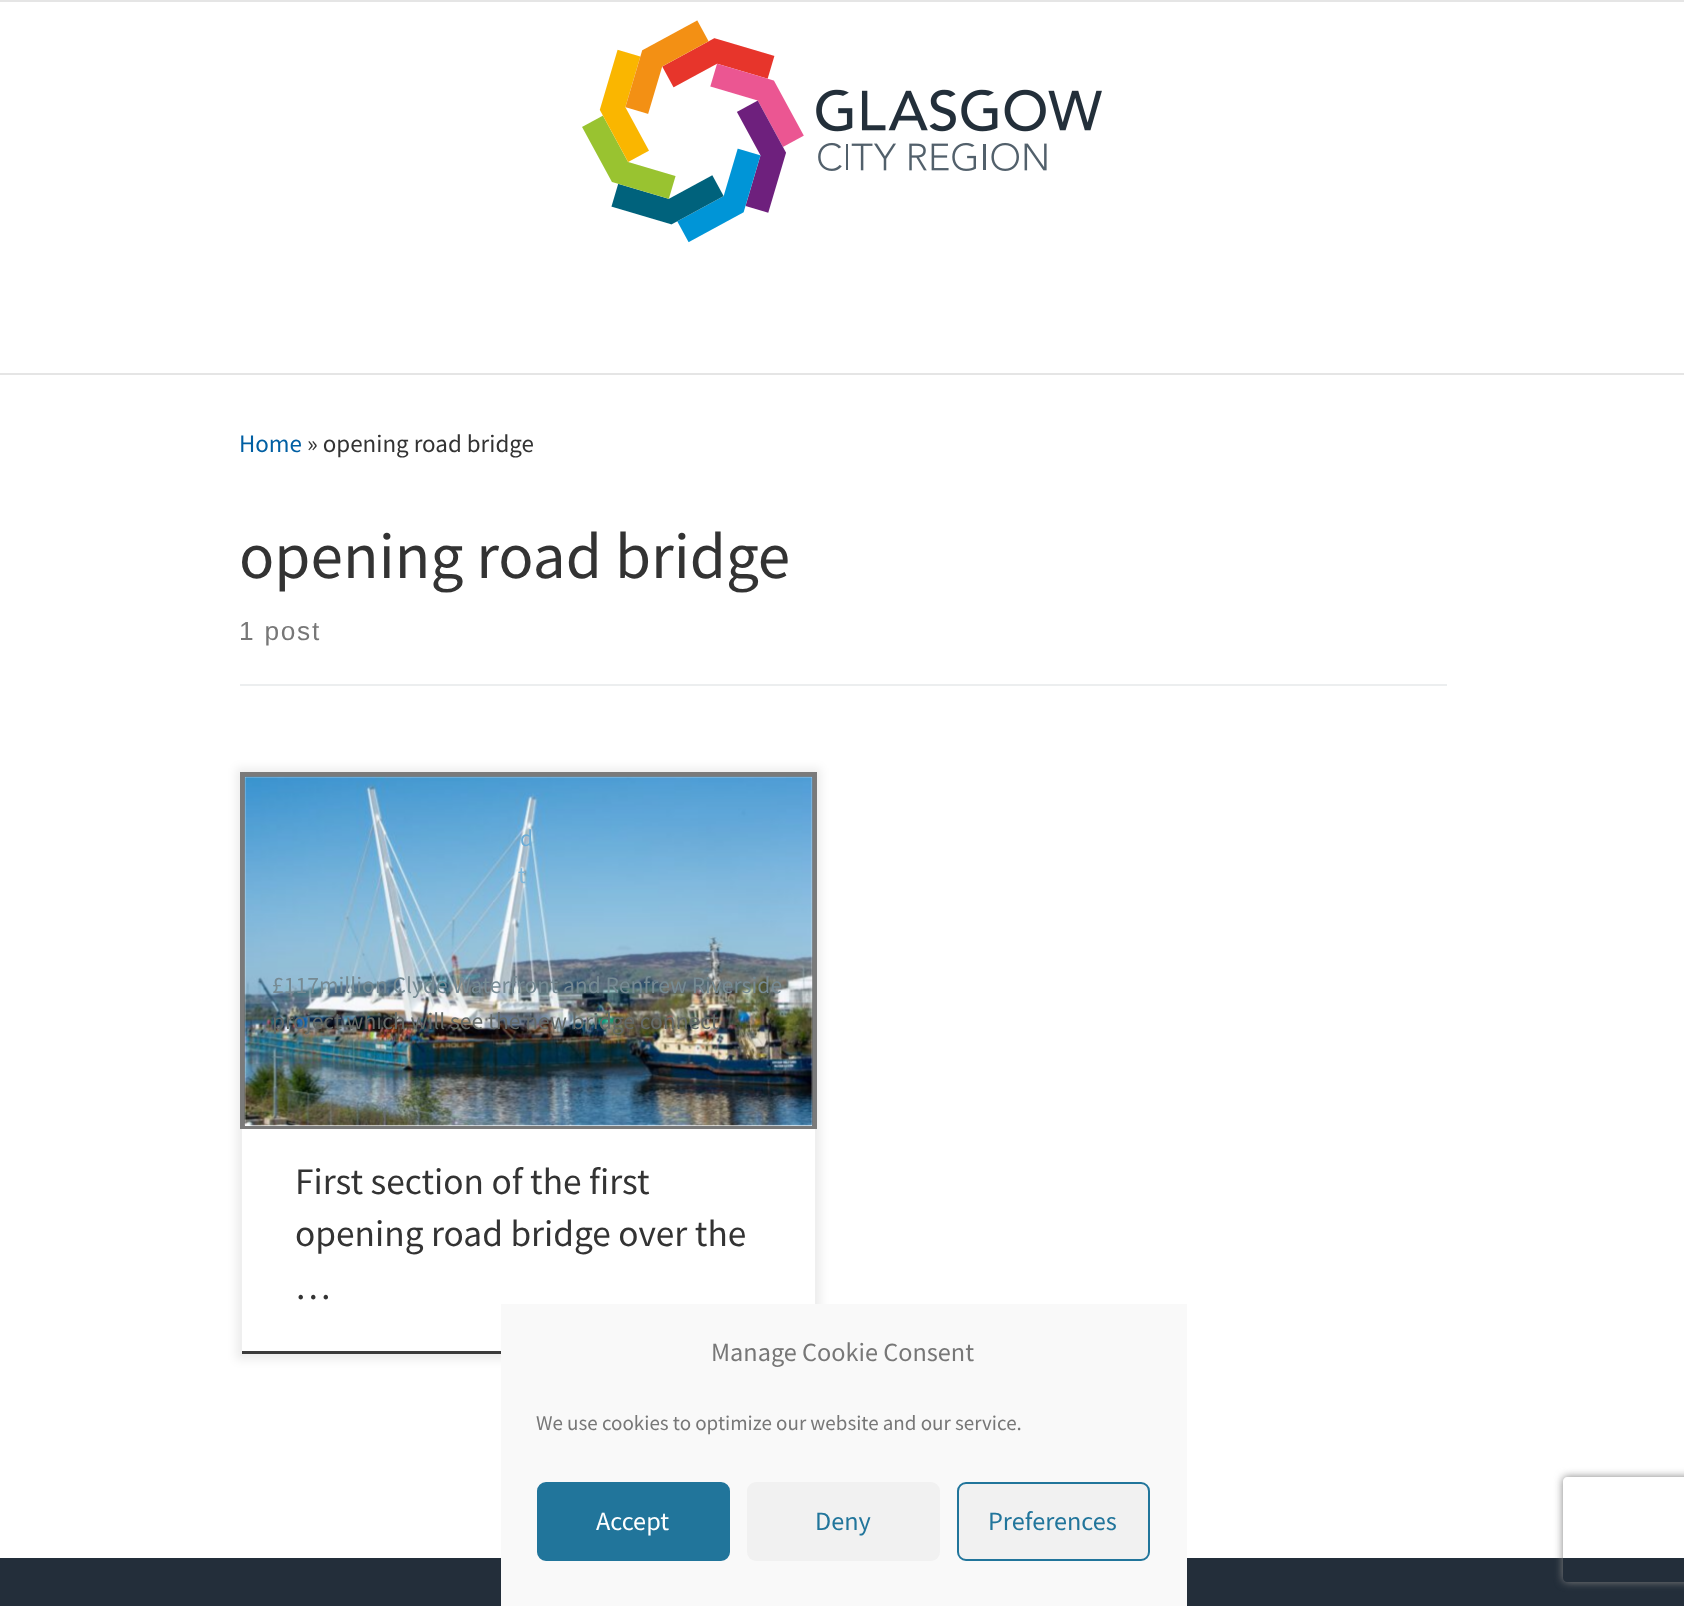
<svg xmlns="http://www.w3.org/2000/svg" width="1684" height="1606">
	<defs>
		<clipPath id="clip1"><path d="M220 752H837V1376H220ZM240 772H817V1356H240Z" clip-rule="evenodd" /></clipPath>
		<clipPath id="clip2"><rect x="240" y="772" width="577" height="357" /></clipPath>
		<clipPath id="clip3"><path d="M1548 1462H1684V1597H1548ZM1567 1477H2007C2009 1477 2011 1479 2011 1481V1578C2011 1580 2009 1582 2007 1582H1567C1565 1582 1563 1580 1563 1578V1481C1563 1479 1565 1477 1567 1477Z" clip-rule="evenodd" /></clipPath>
	</defs>
	<rect width="100%" height="100%" fill="#FFFFFF" />
	<rect x="0" y="0" width="1684" height="2" fill="#E5E5E5" />
	<rect x="0" y="373" width="1684" height="2" fill="#E5E5E5" />
	<image x="582" y="20" width="520" height="223" href="assets/img1.png" />
	<text x="239" y="452" font-family="Source Sans Pro" font-size="25" fill="#005FA3">Home</text>
	<text x="307" y="452" font-family="Source Sans Pro" font-size="25" fill="#333333">» opening road bridge</text>
	<text x="239" y="578" font-family="Source Sans Pro" font-size="65.25" fill="#333333">opening road bridge</text>
	<text x="239" y="640" font-family="Liberation Sans" font-size="26.25" letter-spacing="1.75" fill="#777777">1 post</text>
	<rect x="240" y="684" width="1207" height="2" fill="#ECEEEF" />
	<g clip-path="url(#clip1)">
		<rect x="236" y="768" width="585" height="592" fill="#000000" fill-opacity="0.07" filter="blur(5px)" />
	</g>
	<rect x="240" y="1351" width="261" height="3" fill="#3B3B3B" />
	<rect x="241" y="773" width="575" height="582" fill="none" stroke="#EFEFEF" stroke-width="2" />
	<g clip-path="url(#clip2)">
		<rect x="242.5" y="774.5" width="572" height="354" fill="none" stroke="#7A7A7A" stroke-width="5" />
	</g>
	<image x="244" y="776" width="569" height="350" href="assets/img2.png" />
	<text x="520" y="846" font-family="Source Sans Pro" font-size="23.6" fill="#6BADD8">d</text>
	<text x="518" y="883" font-family="Source Sans Pro" font-size="23.6" fill="#7EB7DB">t</text>
	<text x="272" y="993" font-family="Source Sans Pro" font-size="23.6" fill="#768A93">£117million Clyde Waterfront and Renfrew Riverside</text>
	<text x="272" y="1029" font-family="Source Sans Pro" font-size="23.6" fill="#636967">project which will see the new bridge connect</text>
	<g font-family="Source Sans Pro" font-size="37.4" fill="#333333">
		<text x="295" y="1194">First section of the first</text>
		<text x="295" y="1246">opening road bridge over the</text>
		<text x="295" y="1299">…</text>
	</g>
	<rect x="0" y="1558" width="1684" height="48" fill="#232E3A" />
	<rect x="501" y="1304" width="686" height="302" fill="#F9F9F9" />
	<text x="711" y="1361" font-family="Source Sans Pro" font-size="26.25" fill="#777777">Manage Cookie Consent</text>
	<text x="536" y="1430" font-family="Source Sans Pro" font-size="21" fill="#777777">We use cookies to optimize our website and our service.</text>
	<rect x="538" y="1483" width="191" height="77" rx="8" fill="#21759B" stroke="#21759B" stroke-width="2" />
	<text x="596" y="1530" font-family="Source Sans Pro" font-size="26.25" fill="#FFFFFF">Accept</text>
	<rect x="747" y="1482" width="193" height="79" rx="9" fill="#F1F1F1" />
	<text x="815" y="1530" font-family="Source Sans Pro" font-size="26.25" fill="#21759B">Deny</text>
	<rect x="958" y="1483" width="191" height="77" rx="8" fill="#F1F1F1" stroke="#21759B" stroke-width="2" />
	<text x="988" y="1530" font-family="Source Sans Pro" font-size="26.25" fill="#21759B">Preferences</text>
	<g clip-path="url(#clip3)">
		<rect x="1563" y="1477" width="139" height="105" rx="4" fill="#808080" filter="blur(4.5px)" />
	</g>
</svg>
